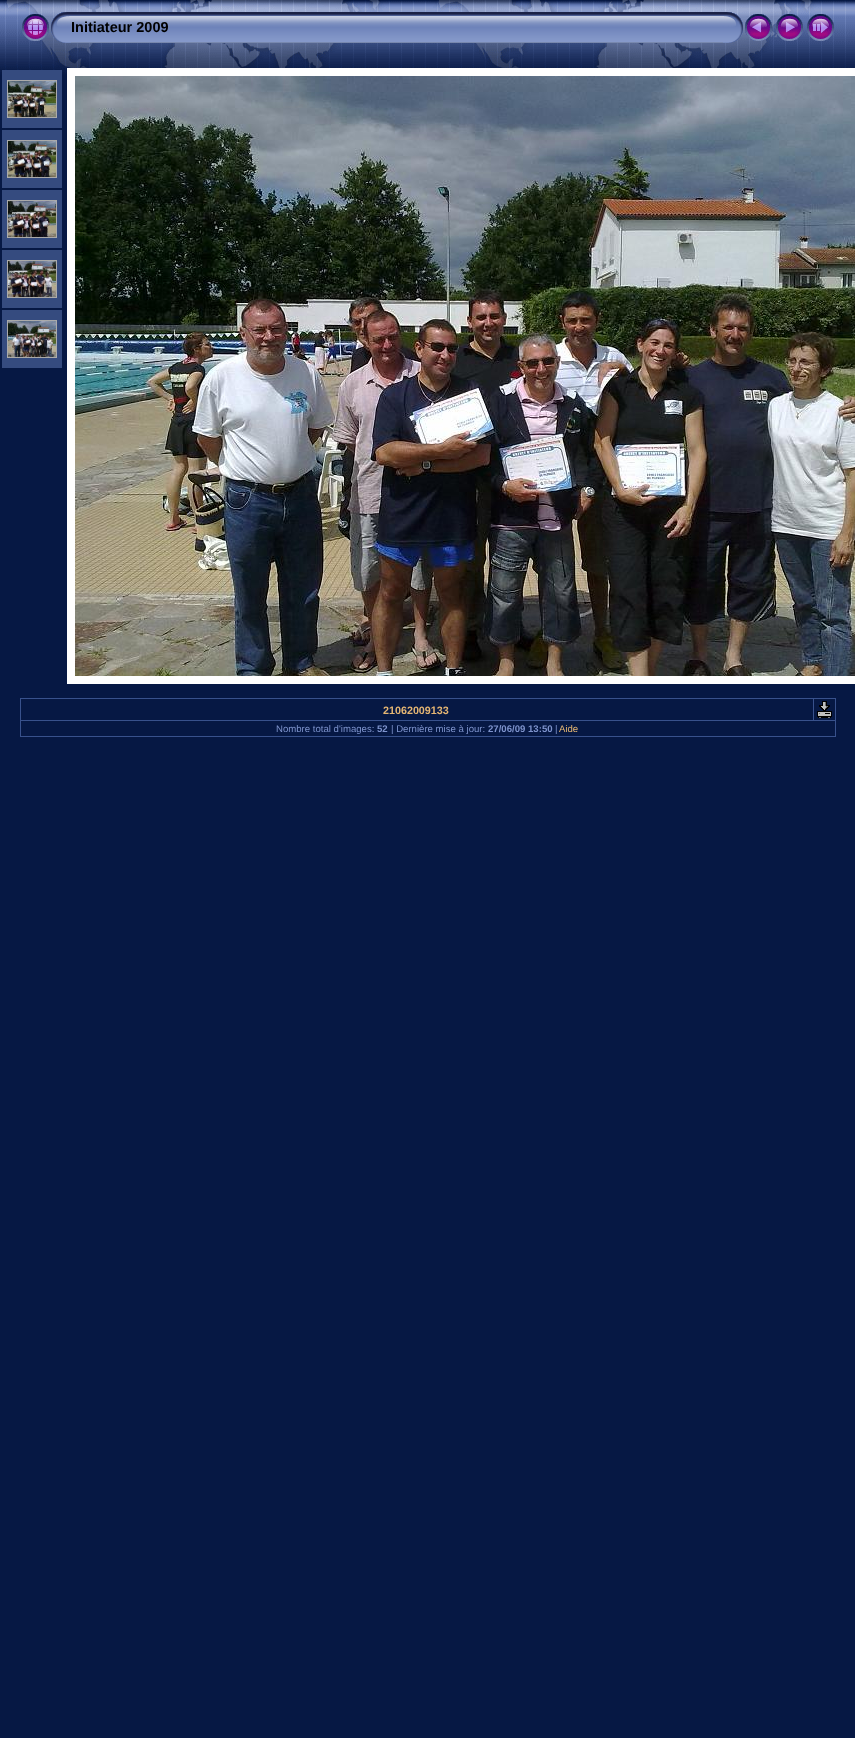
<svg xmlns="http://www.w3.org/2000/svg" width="855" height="1738">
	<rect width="100%" height="100%" fill="#061844" />
	<image x="0" y="0" width="855" height="168" href="assets/img1.png" />
	<image x="22" y="14" width="27" height="27" href="assets/img2.png" />
	<image x="51" y="12" width="20" height="31" href="assets/img3.png" />
	<image x="71" y="12" width="652" height="31" href="assets/img4.png" />
	<text x="71" y="32" font-family="Liberation Sans" font-size="14.5" font-weight="700" fill="#000000">Initiateur 2009</text>
	<image x="723" y="12" width="20" height="31" href="assets/img5.png" />
	<image x="745" y="14" width="27" height="27" href="assets/img6.png" />
	<image x="776" y="14" width="27" height="27" href="assets/img7.png" />
	<image x="807" y="14" width="27" height="27" href="assets/img8.png" />
	<rect x="2" y="70" width="60" height="58" fill="#354B7F" />
	<rect x="7.5" y="80.5" width="49" height="37" fill="none" stroke="#AAAAAA" />
	<image x="8" y="81" width="48" height="36" href="assets/img9.png" />
	<rect x="2" y="130" width="60" height="58" fill="#354B7F" />
	<rect x="7.5" y="140.5" width="49" height="37" fill="none" stroke="#AAAAAA" />
	<image x="8" y="141" width="48" height="36" href="assets/img10.png" />
	<rect x="2" y="190" width="60" height="58" fill="#354B7F" />
	<rect x="7.5" y="200.5" width="49" height="37" fill="none" stroke="#AAAAAA" />
	<image x="8" y="201" width="48" height="36" href="assets/img11.png" />
	<rect x="2" y="250" width="60" height="58" fill="#354B7F" />
	<rect x="7.5" y="260.5" width="49" height="37" fill="none" stroke="#AAAAAA" />
	<image x="8" y="261" width="48" height="36" href="assets/img12.png" />
	<rect x="2" y="310" width="60" height="58" fill="#354B7F" />
	<rect x="7.5" y="320.5" width="49" height="37" fill="none" stroke="#AAAAAA" />
	<image x="8" y="321" width="48" height="36" href="assets/img13.png" />
	<rect x="71" y="72" width="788" height="608" fill="none" stroke="#FFFFFF" stroke-width="8" />
	<image x="75" y="76" width="780" height="600" href="assets/img14.png" />
	<rect x="813" y="698" width="23" height="1" fill="#38518C" />
	<rect x="20" y="720" width="816" height="1" fill="#38518C" />
	<rect x="813" y="698" width="1" height="23" fill="#38518C" />
	<rect x="20" y="698" width="794" height="1" fill="#38518C" />
	<rect x="835" y="720" width="1" height="17" fill="#38518C" />
	<rect x="20" y="736" width="816" height="1" fill="#38518C" />
	<rect x="20" y="720" width="1" height="17" fill="#38518C" />
	<rect x="20" y="698" width="1" height="23" fill="#38518C" />
	<text x="383" y="714" font-family="Liberation Sans" font-size="10.75" font-weight="700" fill="#E5B673">21062009133</text>
	<rect x="835" y="698" width="1" height="23" fill="#38518C" />
	<image x="817" y="701" width="15" height="17" href="assets/img15.png" />
	<text x="276" y="732" font-family="Liberation Sans" font-size="9.6" fill="#7E93CC">Nombre total d'images:</text>
	<text x="377" y="732" font-family="Liberation Sans" font-size="9.6" font-weight="700" fill="#7E93CC">52</text>
	<text x="391" y="732" font-family="Liberation Sans" font-size="9.6" fill="#7E93CC">| Dernière mise à jour:</text>
	<text x="488" y="732" font-family="Liberation Sans" font-size="9.6" font-weight="700" fill="#7E93CC">27/06/09 13:50</text>
	<text x="555" y="732" font-family="Liberation Sans" font-size="9.6" fill="#7E93CC">|</text>
	<text x="559" y="732" font-family="Liberation Sans" font-size="9.6" fill="#E5B673">Aide</text>
</svg>
